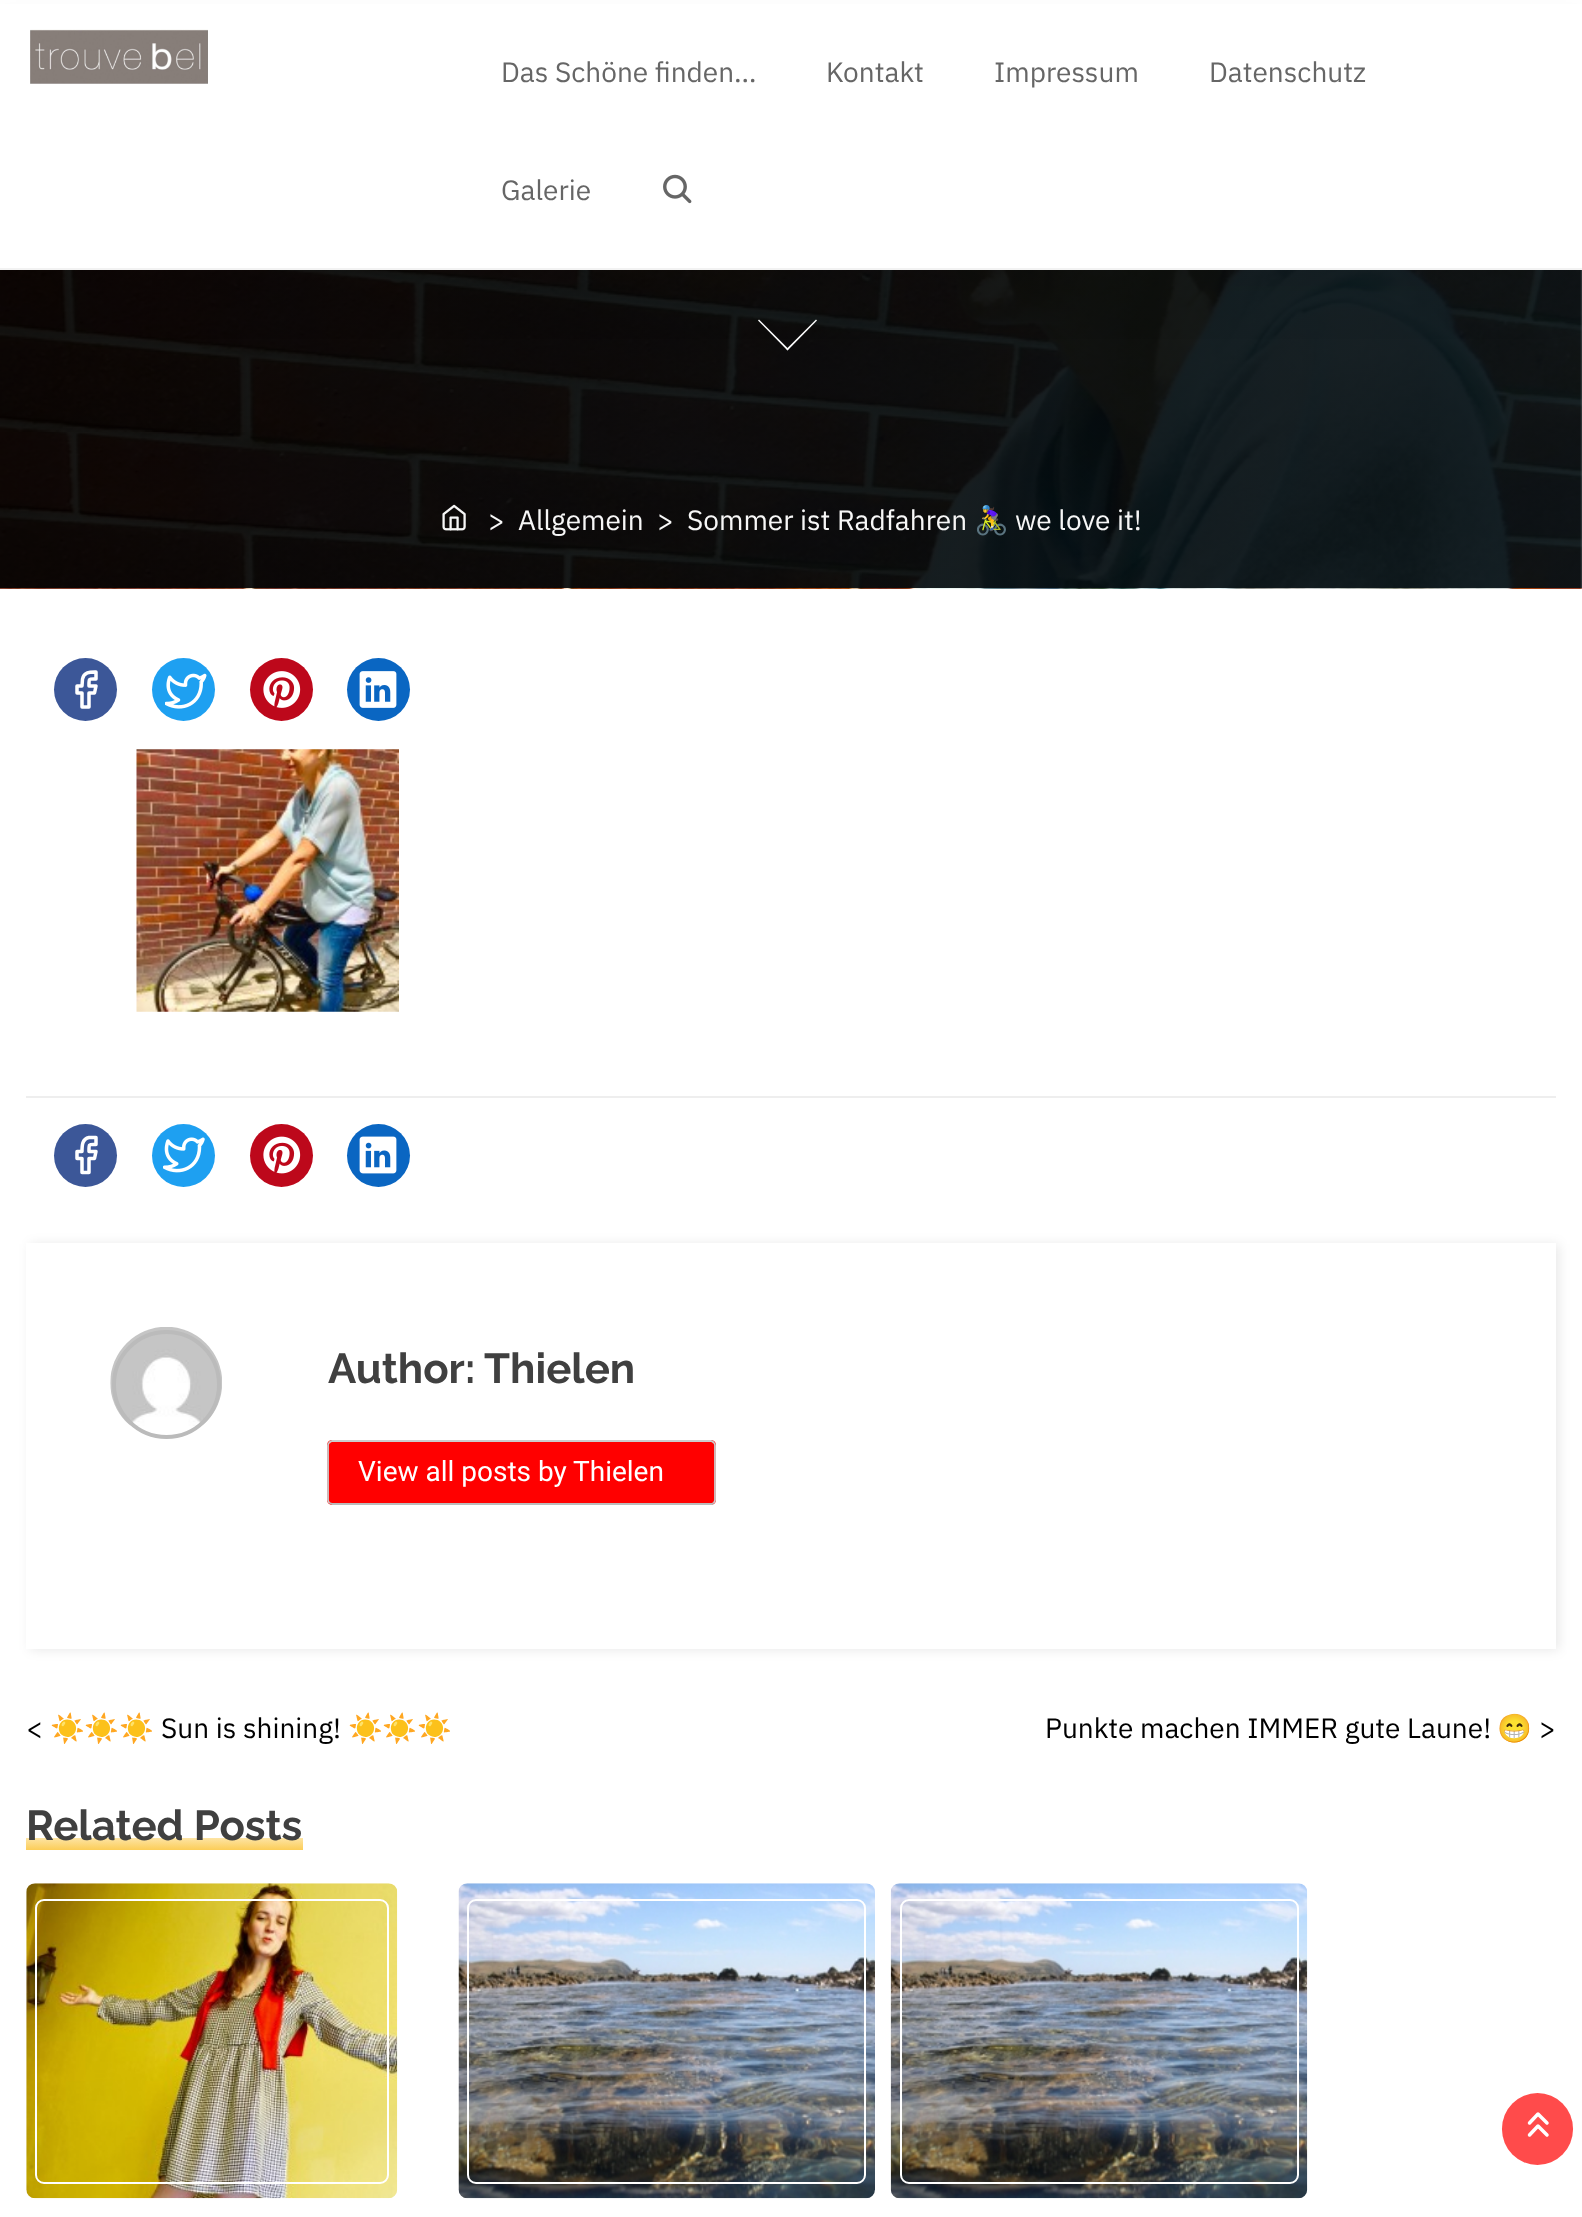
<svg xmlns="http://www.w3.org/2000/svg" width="1582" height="2217">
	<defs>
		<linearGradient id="g1" gradientUnits="userSpaceOnUse" x1="1582" y1="-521" x2="0" y2="-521"><stop offset="0" stop-color="#041A24" stop-opacity="0.5" /><stop offset="1" stop-color="#000000" stop-opacity="0.5" /></linearGradient>
		<clipPath id="clip1"><path d="M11 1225H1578V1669H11ZM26 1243H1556V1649H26Z" clip-rule="evenodd" /></clipPath>
		<linearGradient id="g2" gradientUnits="userSpaceOnUse" x1="165" y1="1837" x2="165" y2="1850"><stop offset="0" stop-color="#FDE6AB" /><stop offset="1" stop-color="#FCCD57" /></linearGradient>
	</defs>
	<rect width="100%" height="100%" fill="#FFFFFF" />
	<image x="0" y="270" width="1582" height="319" href="assets/img3.png" />
	<rect x="0" y="270" width="1582" height="318" fill="url(#g1)" />
	<path d="M786.5 349L816 319.5L817 320.5L787.5 350.5Z" fill="#FFFFFF" />
	<path d="M758 320.5L759 319.5L788.5 349L787.5 350.5Z" fill="#FFFFFF" />
	<rect x="0" y="26" width="1582" height="270" fill="#000000" fill-opacity="0.05" filter="blur(26px)" />
	<rect x="0" y="4" width="1582" height="264" fill="#FFFFFF" />
	<rect x="0" y="268" width="1582" height="2" fill="#F2F2F2" />
	<image x="30" y="29" width="178" height="55" href="assets/img1.png" />
	<g font-family="IBM Plex Sans" font-size="28" fill="#666666">
		<text x="501" y="82">Das Schöne finden…</text>
		<text x="826" y="82">Kontakt</text>
		<text x="994" y="82">Impressum</text>
		<text x="1209" y="82">Datenschutz</text>
		<text x="501" y="200">Galerie</text>
	</g>
	<image x="663" y="174" width="29" height="30" href="assets/img2.png" />
	<image x="442" y="504" width="24" height="27" href="assets/img4.png" />
	<text x="488" y="530" font-family="IBM Plex Sans" font-size="28" fill="#F7F7F7" xml:space="preserve">&gt;  Allgemein  &gt;  Sommer ist Radfahren</text>
	<text x="974" y="530" font-family="Noto Color Emoji" font-size="28" fill="#F7F7F7">🚴‍♀️</text>
	<text x="1015" y="530" font-family="IBM Plex Sans" font-size="28" fill="#F7F7F7">we love it!</text>
	<circle cx="85.5" cy="689.5" r="31.5" fill="#3C5798" />
	<path d="M96 672C90.5 672 84 671.5 82.5 679L82 686H77V693H82V707H89V693H94.5L96 686H89C89 678 88.5 679 96 679Z" fill="none" stroke="#FFFFFF" stroke-width="3.5" stroke-linecap="round" stroke-linejoin="round" />
	<circle cx="183.5" cy="689.5" r="31.5" fill="#1EA0F1" />
	<image x="165" y="673" width="42" height="36" href="assets/img5.png" />
	<circle cx="281.5" cy="689.5" r="31.5" fill="#BD081B" />
	<image x="263" y="671" width="38" height="37" href="assets/img6.png" />
	<circle cx="378.5" cy="689.5" r="31.5" fill="#0A66C2" />
	<image x="359" y="671" width="38" height="37" href="assets/img7.png" />
	<image x="136" y="749" width="263" height="263" href="assets/img8.png" />
	<rect x="26" y="1096" width="1530" height="2" fill="#EEEEEE" />
	<circle cx="85.5" cy="1155.5" r="31.5" fill="#3C5798" />
	<path d="M96 1137.5H89C82 1139 82 1145.5 82 1151.5H77V1158.5H82V1172.5H89V1158.5H94.5L96 1151.5H89C89 1143.5 88.5 1144.5 96 1144.5Z" fill="none" stroke="#FFFFFF" stroke-width="3.5" stroke-linecap="round" stroke-linejoin="round" />
	<circle cx="183.5" cy="1155.5" r="31.5" fill="#1EA0F1" />
	<image x="163" y="1137" width="42" height="36" href="assets/img9.png" />
	<circle cx="281.5" cy="1155.5" r="31.5" fill="#BD081B" />
	<image x="263" y="1136" width="38" height="38" href="assets/img10.png" />
	<circle cx="378.5" cy="1155.5" r="31.5" fill="#0A66C2" />
	<image x="359" y="1136" width="38" height="38" href="assets/img11.png" />
	<g clip-path="url(#clip1)">
		<rect x="30" y="1244" width="1529" height="406" fill="#000000" fill-opacity="0.09" filter="blur(6px)" />
	</g>
	<image x="110" y="1327" width="112" height="99" href="assets/img12.png" />
	<circle cx="166.5" cy="1384.5" r="52.5" fill="none" stroke="#BBBBBB" stroke-width="4" />
	<text x="328" y="1383" font-family="Raleway" font-size="42" font-weight="700" fill="#404040">Author: Thielen</text>
	<rect x="327" y="1440" width="389" height="65" rx="5" fill="#FF0000" />
	<path d="M713.5 1503L712 1504H395.5H332.5L329.5 1503" fill="none" stroke="#BBBBBB" stroke-width="1.8" />
	<path d="M329.5 1503C328.5 1502 328 1501 328 1500V1445.5C328 1444.5 328.5 1443 329.5 1442.5C330 1441.5 331.5 1441 332.5 1441H710.5C711.5 1441 713 1441.5 713.5 1442.5C714.5 1443 715 1444.5 715 1445.5V1500C715 1501 714.5 1502 713.5 1503" fill="none" stroke="#CCCCCC" stroke-width="1.8" />
	<g font-family="Roboto" font-size="28" fill="#FFFFFF">
		<text x="358" y="1481">View all posts by</text>
		<text x="573" y="1481">Thielen</text>
	</g>
	<text x="26" y="1738" font-family="IBM Plex Sans" font-size="28" fill="#000000">&lt;</text>
	<text x="50" y="1738" font-family="Noto Color Emoji" font-size="28" fill="#000000">☀️☀️☀️</text>
	<text x="161" y="1738" font-family="IBM Plex Sans" font-size="28" fill="#000000">Sun is shining!</text>
	<text x="348" y="1738" font-family="Noto Color Emoji" font-size="28" fill="#000000">☀️☀️☀️</text>
	<text x="1045" y="1738" font-family="IBM Plex Sans" font-size="28" fill="#000000">Punkte machen IMMER gute Laune!</text>
	<text x="1497" y="1738" font-family="Noto Color Emoji" font-size="28" fill="#000000">😁</text>
	<text x="1539" y="1738" font-family="IBM Plex Sans" font-size="28" fill="#000000">&gt;</text>
	<rect x="26" y="1838" width="277" height="12" fill="url(#g2)" />
	<text x="26" y="1840" font-family="Raleway" font-size="42" font-weight="700" fill="#404040">Related Posts</text>
	<image x="26" y="1883" width="372" height="316" href="assets/img13.png" />
	<rect x="36" y="1900" width="352" height="283" rx="8" fill="none" stroke="#FFFFFF" stroke-width="2" />
	<image x="458" y="1883" width="417" height="316" href="assets/img14.png" />
	<rect x="468" y="1900" width="397" height="283" rx="8" fill="none" stroke="#FFFFFF" stroke-width="2" />
	<image x="890" y="1883" width="418" height="316" href="assets/img15.png" />
	<rect x="901" y="1900" width="397" height="283" rx="8" fill="none" stroke="#FFFFFF" stroke-width="2" />
	<rect x="1502" y="2093" width="71" height="72" rx="35.5" fill="#FF4B4B" />
	<path d="M1547 2123L1538 2114L1529.5 2123M1547 2135L1538 2126L1529.5 2135" fill="none" stroke="#FFFFFF" stroke-width="3.5" stroke-linecap="round" stroke-linejoin="round" />
</svg>
